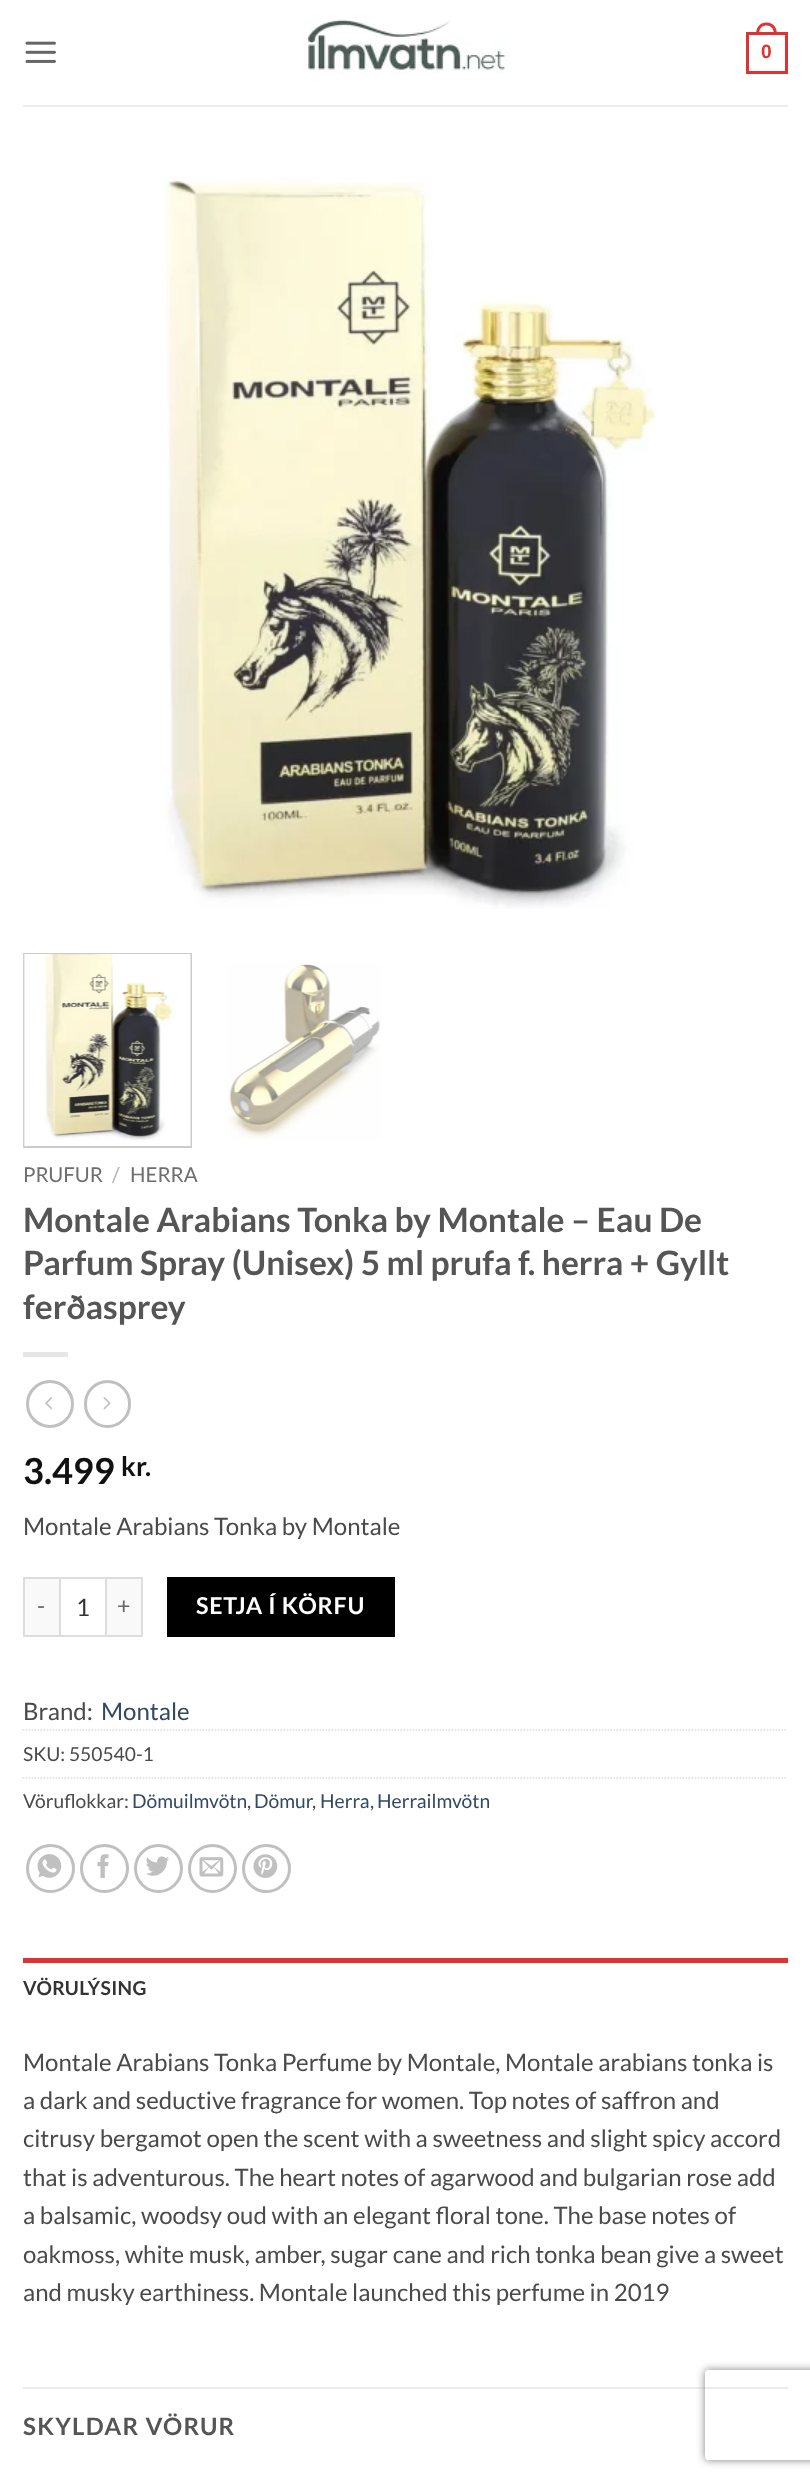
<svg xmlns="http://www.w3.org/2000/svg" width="810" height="2480">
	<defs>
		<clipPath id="clip1"><path d="M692 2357H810V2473H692ZM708 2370H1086C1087.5 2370 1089 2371.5 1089 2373V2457C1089 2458.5 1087.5 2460 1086 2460H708C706.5 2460 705 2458.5 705 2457V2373C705 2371.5 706.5 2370 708 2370Z" clip-rule="evenodd" /></clipPath>
	</defs>
	<rect width="100%" height="100%" fill="#FFFFFF" />
	<image x="25" y="41" width="31" height="22" href="assets/img1.png" />
	<image x="304" y="19" width="204" height="55" href="assets/img2.png" />
	<rect x="747.5" y="33.5" width="39" height="39" fill="none" stroke="#DD3333" stroke-width="3" />
	<path d="M766.5 22.5C773.5 22.5 777 28 777 34.5H756C756 28 759.5 22.5 766.5 22.5ZM766.5 25.5C772 25.5 774 30 774 34.5H759C759 30 761 25.5 766.5 25.5Z" fill="#DD3333" fill-rule="evenodd" />
	<text x="761" y="58" font-family="Liberation Sans" font-size="19.25" font-weight="700" fill="#DD3333">0</text>
	<rect x="23" y="105" width="765" height="2" fill="#EDEDED" />
	<image x="163" y="177" width="494" height="732" href="assets/img3.png" />
	<rect x="24" y="954" width="167" height="193" fill="none" stroke="#CCCCCC" stroke-width="2" />
	<image x="23" y="954" width="168" height="192" href="assets/img4.png" />
	<image x="227" y="964" width="154" height="176" href="assets/img5.png" />
	<text x="23" y="1182" font-family="Lato" font-size="20.5" fill="#6E6E6E">PRUFUR</text>
	<text x="112" y="1182" font-family="Lato" font-size="20.5" fill="#B2B2B2">/</text>
	<text x="130" y="1182" font-family="Lato" font-size="20.5" fill="#6E6E6E">HERRA</text>
	<g font-family="Lato" font-size="33.6" font-weight="700" fill="#555555">
		<text x="23" y="1232">Montale Arabians Tonka by Montale – Eau De</text>
		<text x="23" y="1275">Parfum Spray (Unisex) 5 ml prufa f. herra + Gyllt</text>
		<text x="23" y="1319">ferðasprey</text>
	</g>
	<rect x="23" y="1352" width="45" height="5" fill="#E6E6E6" />
	<circle cx="50" cy="1404" r="22.5" fill="none" stroke="#C0C0C0" stroke-width="3" />
	<image x="45" y="1397" width="8" height="13" href="assets/img6.png" />
	<rect x="85.5" y="1381.5" width="44" height="45" rx="22" fill="none" stroke="#C0C0C0" stroke-width="3" />
	<image x="103" y="1397" width="8" height="13" href="assets/img7.png" />
	<text x="23" y="1484" font-family="Lato" font-size="36" font-weight="700" fill="#111111">3.499</text>
	<text x="121" y="1476" font-family="Lato" font-size="27" font-weight="700" fill="#111111">kr.</text>
	<text x="23" y="1535" font-family="Lato" font-size="24" fill="#4A4A4A">Montale Arabians Tonka by Montale</text>
	<rect x="25" y="1579" width="34" height="56" fill="#F9F9F9" />
	<rect x="23" y="1577" width="36" height="2" fill="#DDDDDD" />
	<rect x="23" y="1635" width="36" height="2" fill="#DDDDDD" />
	<rect x="23" y="1577" width="2" height="60" fill="#DDDDDD" />
	<text x="37" y="1614" font-family="Lato" font-size="23.25" letter-spacing="0.75" fill="#666666">-</text>
	<rect x="60" y="1578" width="46" height="58" fill="none" stroke="#DDDDDD" stroke-width="2" />
	<text x="76" y="1616" font-family="Lato" font-size="24" fill="#333333">1</text>
	<rect x="107" y="1579" width="34" height="56" fill="#F9F9F9" />
	<rect x="107" y="1577" width="36" height="2" fill="#DDDDDD" />
	<rect x="141" y="1577" width="2" height="60" fill="#DDDDDD" />
	<rect x="107" y="1635" width="36" height="2" fill="#DDDDDD" />
	<text x="117" y="1614" font-family="Lato" font-size="23.25" letter-spacing="0.75" fill="#666666">+</text>
	<rect x="167" y="1577" width="228" height="60" fill="#000000" />
	<text x="196" y="1614" font-family="Lato" font-size="23.25" font-weight="700" letter-spacing="0.75" fill="#FFFFFF">SETJA Í KÖRFU</text>
	<text x="23" y="1720" font-family="Lato" font-size="24" fill="#4A4A4A">Brand:</text>
	<text x="101" y="1720" font-family="Lato" font-size="24" fill="#334862">Montale</text>
	<path d="M22.5 1730H787.5" fill="none" stroke="#DDDDDD" stroke-width="1.5" stroke-dasharray="1.5 1.5" />
	<text x="23" y="1761" font-family="Lato" font-size="19.25" fill="#4A4A4A">SKU: 550540-1</text>
	<path d="M22.5 1778H787.5" fill="none" stroke="#DDDDDD" stroke-width="1.5" stroke-dasharray="1.5 1.5" />
	<text x="23" y="1808" font-family="Lato" font-size="19.25" fill="#4A4A4A">Vöruflokkar:</text>
	<text x="132" y="1808" font-family="Lato" font-size="19.25" fill="#334862">Dömuilmvötn</text>
	<text x="247" y="1808" font-family="Lato" font-size="19.25" fill="#4A4A4A">,</text>
	<text x="254" y="1808" font-family="Lato" font-size="19.25" fill="#334862">Dömur</text>
	<text x="312" y="1808" font-family="Lato" font-size="19.25" fill="#4A4A4A">,</text>
	<text x="320" y="1808" font-family="Lato" font-size="19.25" fill="#334862">Herra</text>
	<text x="370" y="1808" font-family="Lato" font-size="19.25" fill="#4A4A4A">,</text>
	<text x="377" y="1808" font-family="Lato" font-size="19.25" fill="#334862">Herrailmvötn</text>
	<circle cx="50.5" cy="1868.5" r="23" fill="none" stroke="#C0C0C0" stroke-width="3" />
	<image x="37" y="1854" width="25" height="24" href="assets/img8.png" />
	<circle cx="104.5" cy="1868.5" r="23" fill="none" stroke="#C0C0C0" stroke-width="3" />
	<image x="97" y="1854" width="12" height="24" href="assets/img9.png" />
	<circle cx="158.5" cy="1868.5" r="23" fill="none" stroke="#C0C0C0" stroke-width="3" />
	<image x="146" y="1856" width="23" height="20" href="assets/img10.png" />
	<circle cx="212.5" cy="1868.5" r="23" fill="none" stroke="#C0C0C0" stroke-width="3" />
	<image x="199" y="1857" width="25" height="20" href="assets/img11.png" />
	<circle cx="266.5" cy="1868.5" r="23" fill="none" stroke="#C0C0C0" stroke-width="3" />
	<image x="253" y="1854" width="25" height="24" href="assets/img12.png" />
	<rect x="23" y="1958" width="765" height="5" fill="#DD3333" />
	<text x="23" y="1995" font-family="Lato" font-size="19.25" font-weight="700" letter-spacing="0.4" fill="#333333">VÖRULÝSING</text>
	<g font-family="Lato" font-size="24" fill="#4A4A4A">
		<text x="23" y="2071">Montale Arabians Tonka Perfume by Montale, Montale arabians tonka is</text>
		<text x="23" y="2109">a dark and seductive fragrance for women. Top notes of saffron and</text>
		<text x="23" y="2147">citrusy bergamot open the scent with a sweetness and slight spicy accord</text>
		<text x="23" y="2186">that is adventurous. The heart notes of agarwood and bulgarian rose add</text>
		<text x="23" y="2224">a balsamic, woodsy oud with an elegant floral tone. The base notes of</text>
		<text x="23" y="2263">oakmoss, white musk, amber, sugar cane and rich tonka bean give a sweet</text>
		<text x="23" y="2301">and musky earthiness. Montale launched this perfume in 2019</text>
	</g>
	<rect x="23" y="2387" width="765" height="2" fill="#ECECEC" />
	<text x="23" y="2435" font-family="Lato" font-size="24" font-weight="700" letter-spacing="1.25" fill="#555555">SKYLDAR VÖRUR</text>
	<g clip-path="url(#clip1)">
		<rect x="705" y="2370" width="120" height="90" rx="3" fill="#808080" filter="blur(4px)" />
	</g>
</svg>
